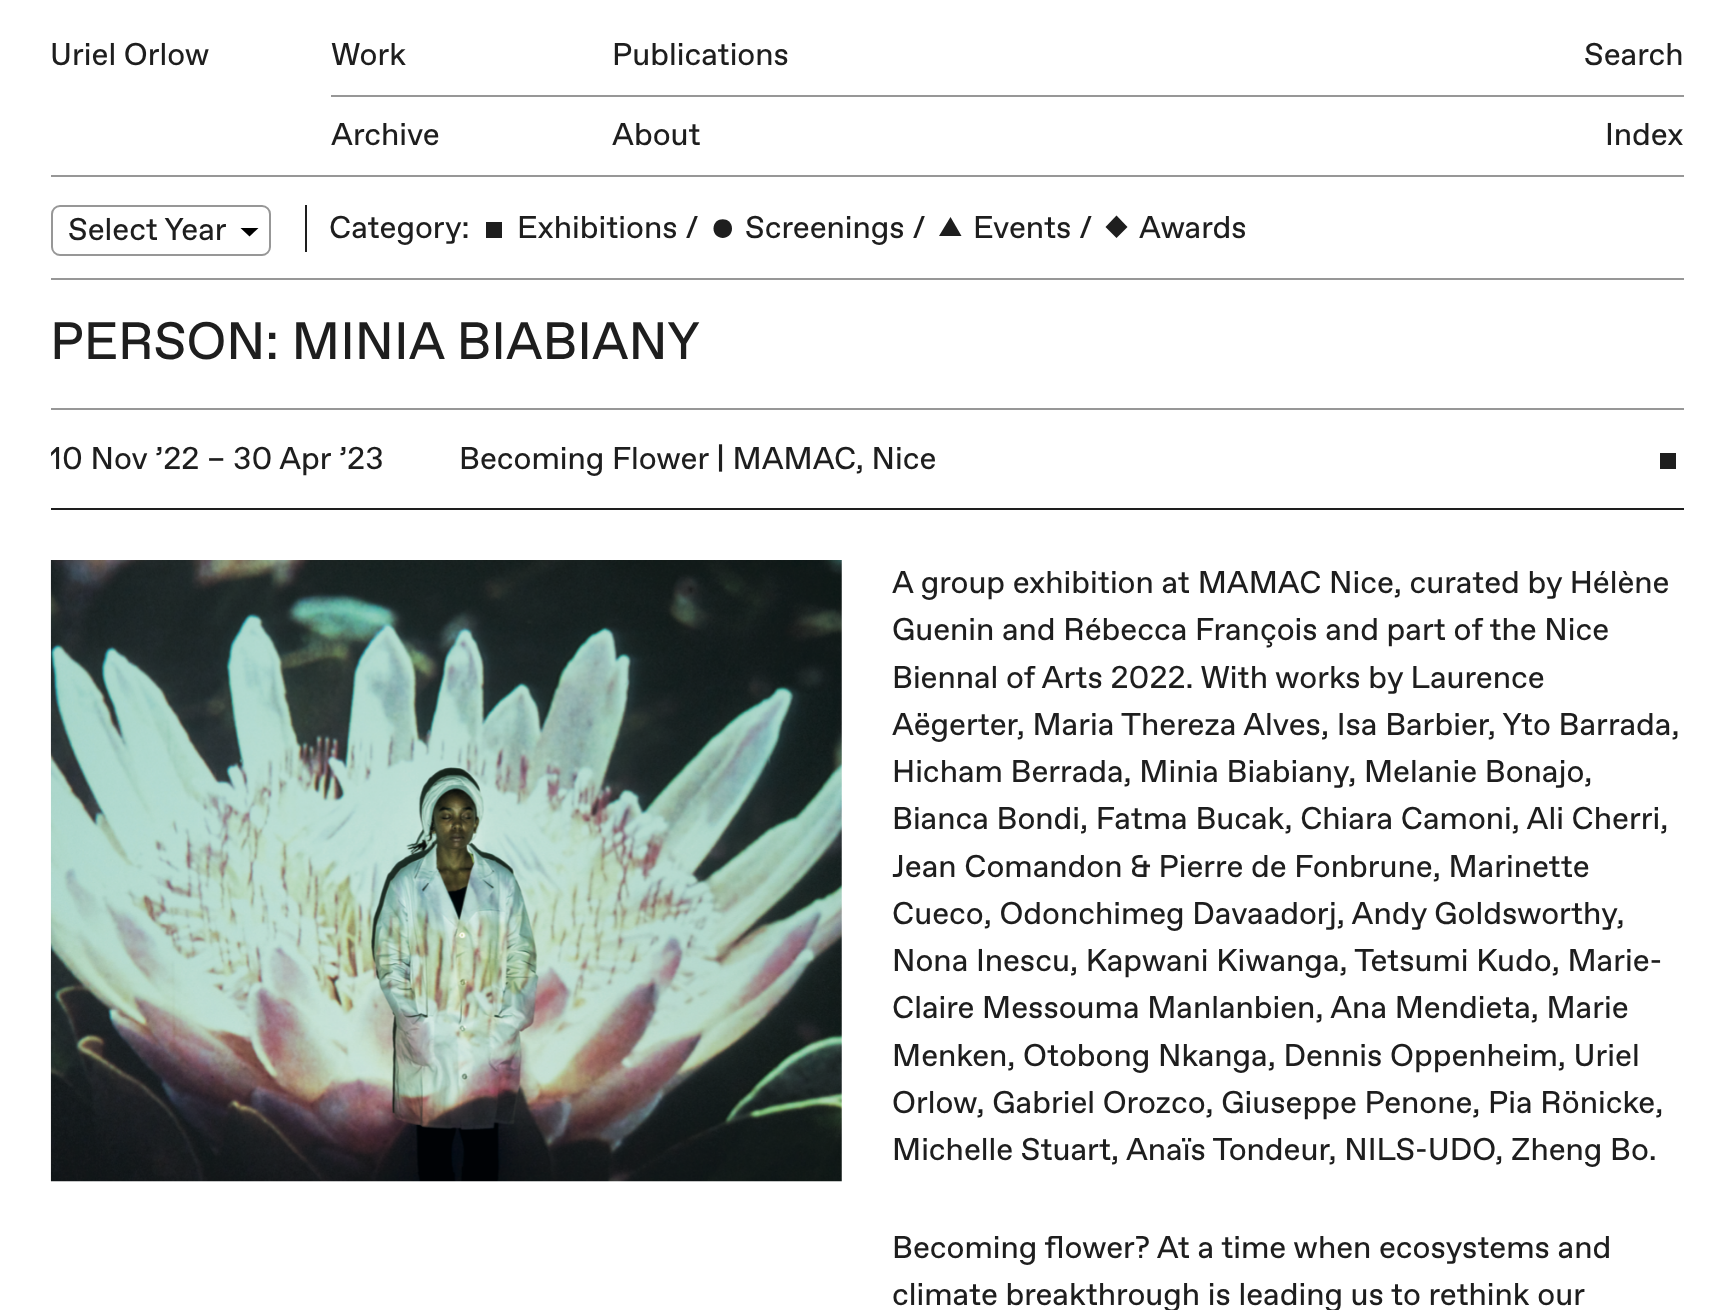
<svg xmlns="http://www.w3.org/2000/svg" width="1733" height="1310">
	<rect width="100%" height="100%" fill="#FFFFFF" />
	<g font-family="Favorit" font-size="31.5" fill="#1E1E1E">
		<text x="50" y="65">Uriel Orlow</text>
		<text x="331" y="65">Work</text>
	</g>
	<rect x="331" y="95" width="1353" height="2" fill="#979797" />
	<g font-family="Favorit" font-size="31.5" fill="#1E1E1E">
		<text x="612" y="65">Publications</text>
		<text x="331" y="145">Archive</text>
		<text x="612" y="145">About</text>
		<text x="1584" y="65">Search</text>
		<text x="1605" y="145">Index</text>
	</g>
	<rect x="51" y="175" width="1633" height="2" fill="#979797" />
	<rect x="51" y="278" width="1633" height="2" fill="#979797" />
	<path d="M249.5 236.5L240.5 228H258.5Z" fill="#000000" />
	<rect x="52" y="206" width="218" height="49" rx="8" fill="none" stroke="#979797" stroke-width="2" />
	<text x="68" y="240" font-family="Favorit" font-size="31.5" fill="#1E1E1E">Select Year</text>
	<rect x="305" y="205" width="2" height="47" fill="#1E1E1E" />
	<text x="329" y="238" font-family="Favorit" font-size="31.5" fill="#1E1E1E">Category:</text>
	<rect x="486" y="222" width="16" height="16" fill="#1E1E1E" />
	<text x="517" y="238" font-family="Favorit" font-size="31.5" fill="#1E1E1E">Exhibitions /</text>
	<path d="M732 228.5C732 241 713.5 241 713.5 228.5C713.5 216 732 216 732 228.5Z" fill="#1E1E1E" />
	<text x="745" y="238" font-family="Favorit" font-size="31.5" fill="#1E1E1E">Screenings /</text>
	<path d="M939 236L950.5 217L961.5 236Z" fill="#1E1E1E" />
	<text x="973" y="238" font-family="Favorit" font-size="31.5" fill="#1E1E1E">Events /</text>
	<path d="M1116.5 215.5L1127.5 227L1116.5 238L1105.5 227Z" fill="#1E1E1E" />
	<text x="1139" y="238" font-family="Favorit" font-size="31.5" fill="#1E1E1E">Awards</text>
	<rect x="51" y="408" width="1633" height="2" fill="#979797" />
	<text x="50" y="359" font-family="Favorit" font-size="52.5" fill="#1E1E1E">PERSON: MINIA BIABIANY</text>
	<rect x="51" y="508" width="1633" height="2" fill="#1E1E1E" />
	<g font-family="Favorit" font-size="31.5" fill="#1E1E1E">
		<text x="50" y="469">10 Nov ’22 – 30 Apr ’23</text>
		<text x="459" y="469">Becoming Flower | MAMAC, Nice</text>
	</g>
	<rect x="1660" y="453" width="16" height="16" fill="#1E1E1E" />
	<image x="50" y="560" width="792" height="622" href="assets/img1.png" />
	<g font-family="Favorit" font-size="31.5" fill="#1E1E1E">
		<text x="892" y="593">A group exhibition at MAMAC Nice, curated by Hélène</text>
		<text x="892" y="640">Guenin and Rébecca François and part of the Nice</text>
		<text x="892" y="688">Biennal of Arts 2022. With works by Laurence</text>
		<text x="892" y="735">Aëgerter, Maria Thereza Alves, Isa Barbier, Yto Barrada,</text>
		<text x="892" y="782">Hicham Berrada, Minia Biabiany, Melanie Bonajo,</text>
		<text x="892" y="829">Bianca Bondi, Fatma Bucak, Chiara Camoni, Ali Cherri,</text>
		<text x="892" y="877">Jean Comandon &amp; Pierre de Fonbrune, Marinette</text>
		<text x="892" y="924">Cueco, Odonchimeg Davaadorj, Andy Goldsworthy,</text>
		<text x="892" y="971">Nona Inescu, Kapwani Kiwanga, Tetsumi Kudo, Marie-</text>
		<text x="892" y="1018">Claire Messouma Manlanbien, Ana Mendieta, Marie</text>
		<text x="892" y="1066">Menken, Otobong Nkanga, Dennis Oppenheim, Uriel</text>
		<text x="892" y="1113">Orlow, Gabriel Orozco, Giuseppe Penone, Pia Rönicke,</text>
		<text x="892" y="1160">Michelle Stuart, Anaïs Tondeur, NILS-UDO, Zheng Bo.</text>
		<text x="892" y="1258">Becoming flower? At a time when ecosystems and</text>
		<text x="892" y="1305">climate breakthrough is leading us to rethink our</text>
	</g>
</svg>
